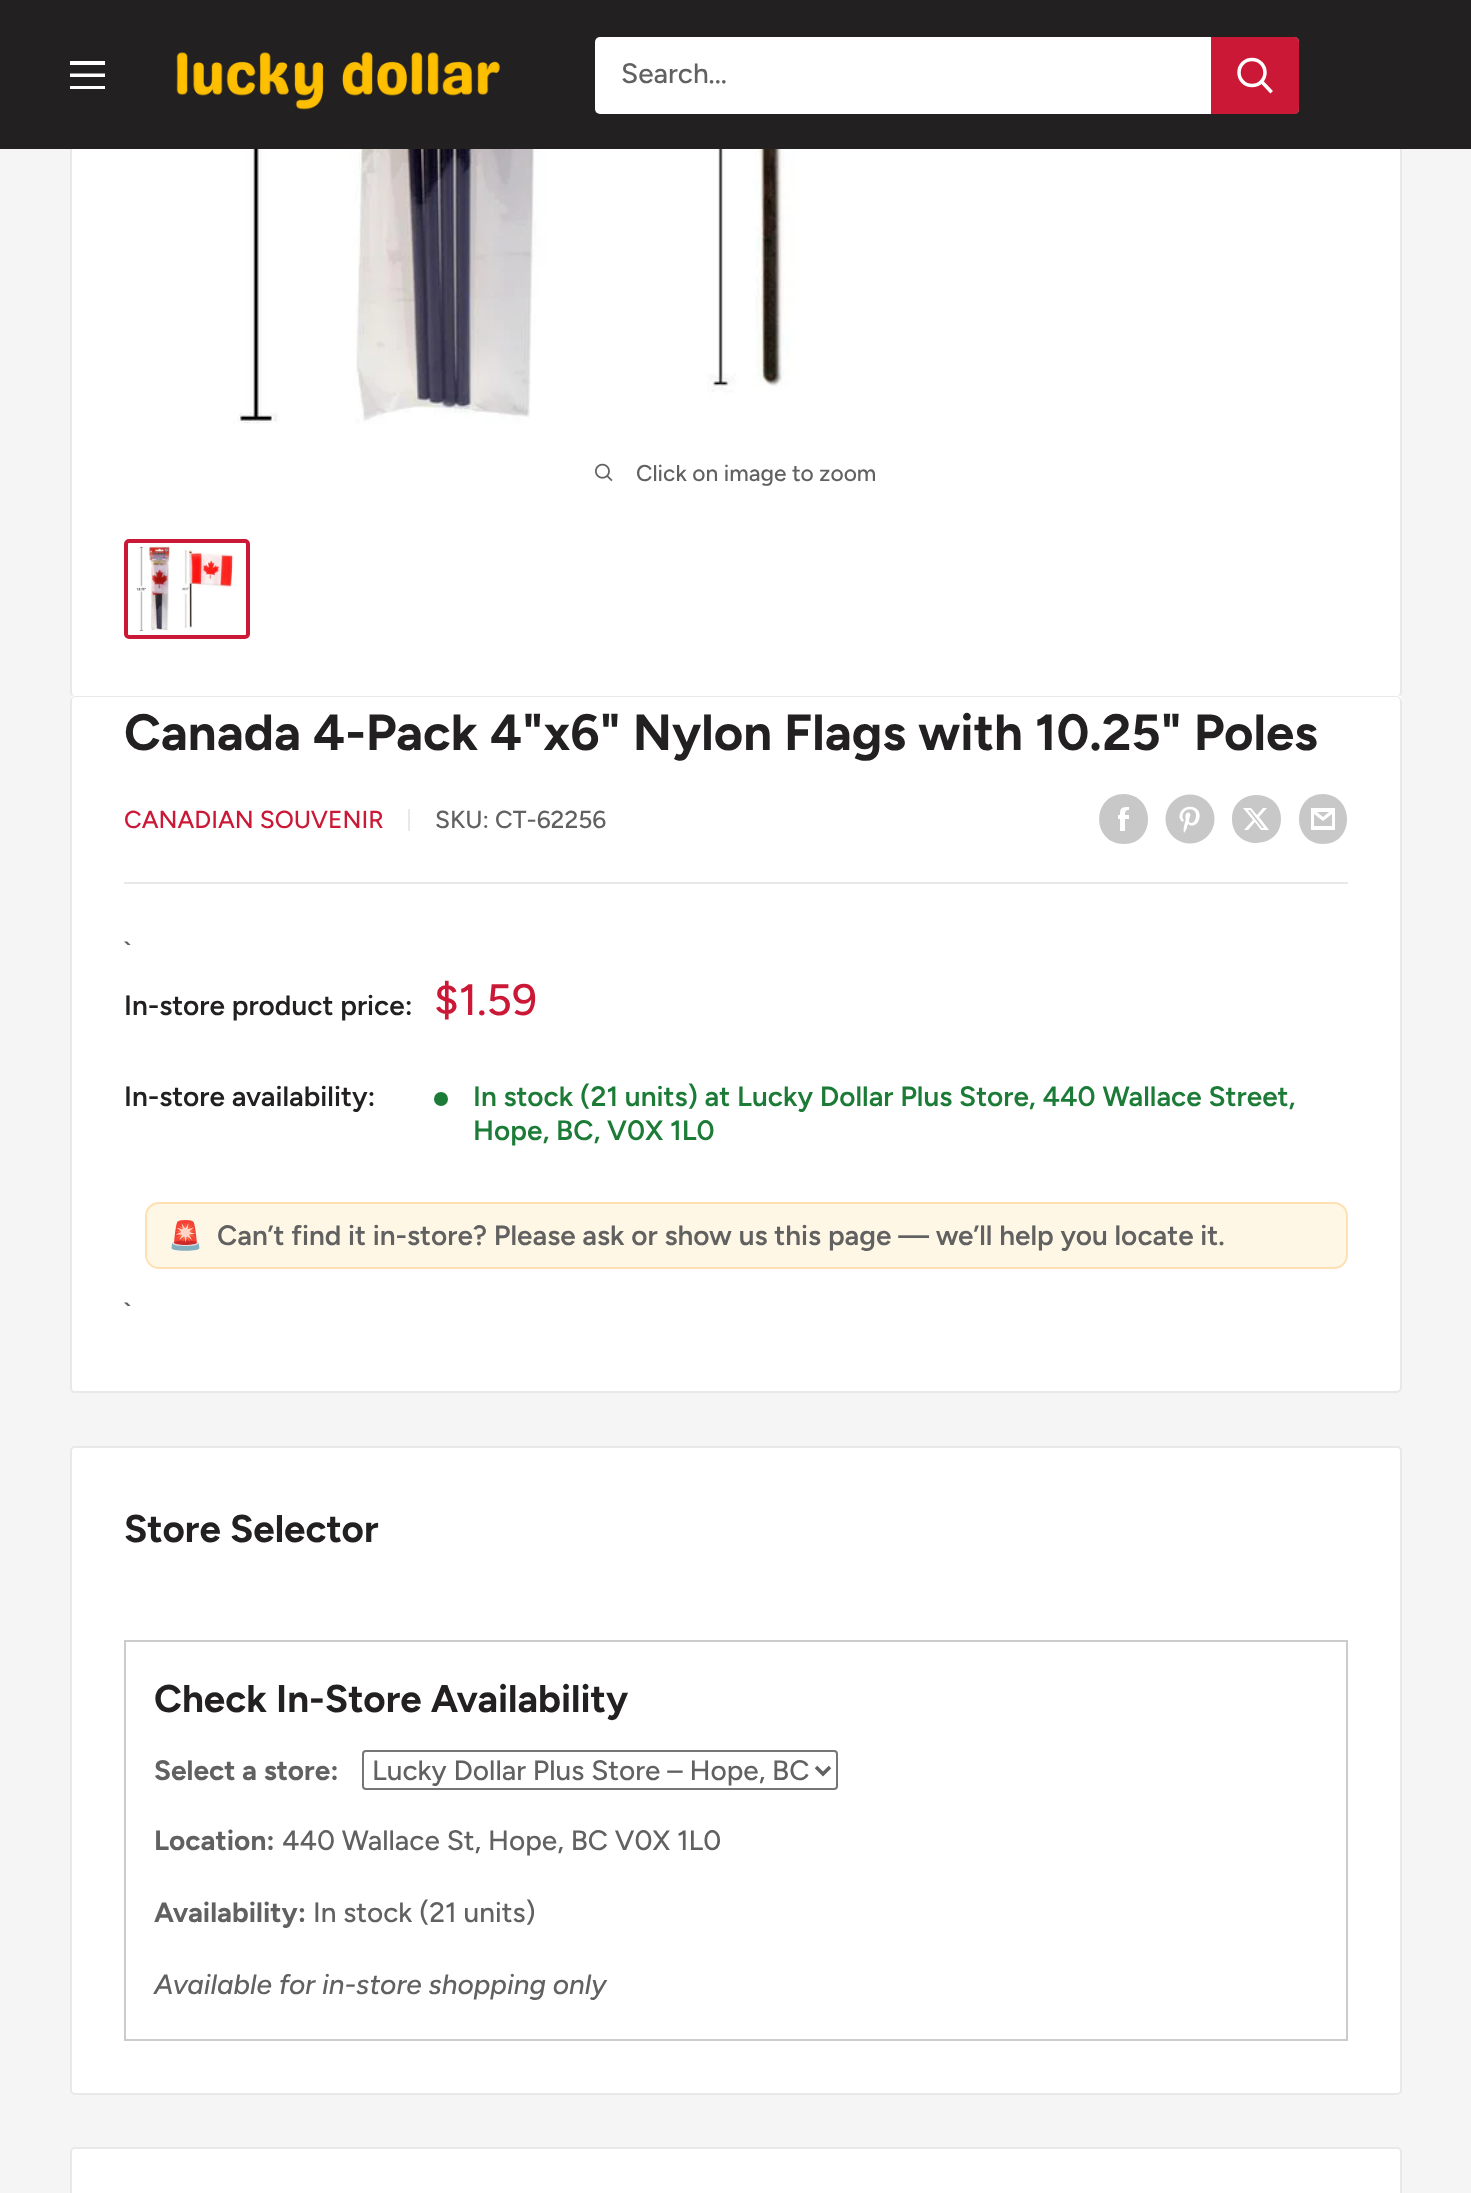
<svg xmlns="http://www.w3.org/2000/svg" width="1471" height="2193">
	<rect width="100%" height="100%" fill="#F5F5F5" />
	<rect x="71" y="-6" width="1330" height="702" rx="4" fill="#FFFFFF" stroke="#E8E8E8" stroke-width="2" />
	<rect x="0" y="0" width="1471" height="149" fill="#222021" />
	<path d="M70 86H105V89H70ZM70 61H105V65H70ZM70 73.5H105V77H70Z" fill="#FFFFFF" fill-rule="evenodd" />
	<image x="176" y="51" width="324" height="59" href="assets/img1.png" />
	<rect x="595" y="37" width="704" height="77" rx="5" fill="#FFFFFF" />
	<text x="621" y="83" font-family="Figtree" font-size="28" font-weight="500" fill="#616161">Search...</text>
	<path d="M1211 37H1294C1297 37 1299 39 1299 42V109C1299 112 1297 114 1294 114H1211Z" fill="#CB1836" />
	<path d="M1270.5 91L1262 82" fill="none" stroke="#FFFFFF" stroke-width="3.5" stroke-linecap="square" />
	<circle cx="1252" cy="72.5" r="13" fill="none" stroke="#FFFFFF" stroke-width="3.5" />
	<image x="209" y="149" width="586" height="275" href="assets/img2.png" />
	<image x="595" y="463" width="18" height="19" href="assets/img3.png" />
	<text x="636" y="481" font-family="Figtree" font-size="22.75" font-weight="500" fill="#616161">Click on image to zoom</text>
	<rect x="126" y="541" width="122" height="96" rx="3" fill="none" stroke="#CB1836" stroke-width="4" />
	<image x="136" y="546" width="99" height="85" href="assets/img4.png" />
	<path d="M75 695C71 695 70 698 70 702C70 699 72 696 75 696H1396C1399 696 1402 699 1402 702V1388V700C1402 697 1400 695 1397 695Z" fill="#FFFFFF" />
	<rect x="70" y="697" width="1332" height="696" rx="5" fill="#FFFFFF" />
	<path d="M75 696H1396C1399 696 1402 699 1402 702V1388C1402 1391 1399 1393 1396 1393H75C72 1393 70 1391 70 1388V702C70 699 72 696 75 696ZM75 696H1396C1398 696 1400 699 1400 702V1388C1400 1390 1398 1391 1396 1391H75C73 1391 72 1390 72 1388V702C72 699 73 696 75 696Z" fill="#E8E8E8" fill-rule="evenodd" />
	<text x="124" y="750" font-family="Figtree" font-size="50.75" font-weight="700" fill="#222021">Canada 4-Pack 4"x6" Nylon Flags with 10.25" Poles</text>
	<text x="124" y="828" font-family="Figtree" font-size="24.5" font-weight="500" fill="#CB1836">CANADIAN SOUVENIR</text>
	<rect x="408" y="809" width="2" height="22" fill="#E8E8E8" />
	<text x="435" y="828" font-family="Figtree" font-size="24.5" font-weight="500" fill="#616161">SKU: CT-62256</text>
	<path d="M1124 844C1091 844 1091 794 1124 794C1156 795 1156 844 1124 844ZM1129 815H1125C1125 812 1125 810 1129 810V807C1121 807 1120 808 1120 815H1118V819H1120V831H1125V819H1129Z" fill="#C8C8C8" fill-rule="evenodd" />
	<image x="1165" y="794" width="50" height="50" href="assets/img5.png" />
	<path d="M1281 819C1281 851 1232 851 1232 819C1232 787 1281 787 1281 819ZM1267 808H1263L1257 815L1251 808H1243L1253 820L1244 830H1248L1255 822L1261 830H1269L1259 817ZM1264 828H1262L1248 810H1250Z" fill="#C8C8C8" fill-rule="evenodd" />
	<path d="M1323 844C1291 844 1291 794 1323 794C1355 795 1355 844 1323 844ZM1317 812H1329L1323 817ZM1332 814V826H1314V814L1323 821ZM1335 808H1311V830H1335Z" fill="#C8C8C8" />
	<rect x="124" y="882" width="1224" height="2" fill="#E8E8E8" />
	<text x="124" y="961" font-family="Figtree" font-size="28" font-weight="500" fill="#616161">`</text>
	<text x="124" y="1015" font-family="Figtree" font-size="28" font-weight="600" fill="#222021">In-store product price:</text>
	<text x="434" y="1015" font-family="Figtree" font-size="44" font-weight="500" fill="#CB1836">$1.59</text>
	<text x="124" y="1106" font-family="Figtree" font-size="28" font-weight="600" fill="#222021">In-store availability:</text>
	<circle cx="441" cy="1099" r="7" fill="#1C7B36" />
	<g font-family="Figtree" font-size="28" font-weight="600" fill="#1C7B36">
		<text x="473" y="1106">In stock (21 units) at Lucky Dollar Plus Store, 440 Wallace Street,</text>
		<text x="473" y="1140">Hope, BC, V0X 1L0</text>
	</g>
	<rect x="146" y="1203" width="1201" height="65" rx="13" fill="#FFF7E6" stroke="#FFE0B2" stroke-width="2" />
	<text x="168" y="1245" font-family="Noto Color Emoji" font-size="28" font-weight="700" fill="#616161">🚨</text>
	<text x="217" y="1245" font-family="Figtree" font-size="28" font-weight="600" fill="#616161">Can’t find it in-store? Please ask or show us this page — we’ll help you locate it.</text>
	<text x="124" y="1322" font-family="Figtree" font-size="28" font-weight="500" fill="#616161">`</text>
	<rect x="71" y="1447" width="1330" height="647" rx="4" fill="#FFFFFF" stroke="#E8E8E8" stroke-width="2" />
	<text x="124" y="1542" font-family="Figtree" font-size="38.5" font-weight="700" fill="#222021">Store Selector</text>
	<rect x="125" y="1641" width="1222" height="399" fill="none" stroke="#CCCCCC" stroke-width="2" />
	<text x="154" y="1712" font-family="Figtree" font-size="38.5" font-weight="700" fill="#222021">Check In-Store Availability</text>
	<text x="154" y="1780" font-family="Figtree" font-size="28" font-weight="700" fill="#616161">Select a store:</text>
	<rect x="363" y="1751" width="474" height="38" rx="3" fill="none" stroke="#767676" stroke-width="2" />
	<path d="M816 1767L823 1774L830 1767" fill="none" stroke="#616161" stroke-width="3.5" />
	<text x="372" y="1780" font-family="Figtree" font-size="28" font-weight="500" fill="#616161">Lucky Dollar Plus Store – Hope, BC</text>
	<text x="154" y="1850" font-family="Figtree" font-size="28" font-weight="700" fill="#616161">Location:</text>
	<text x="282" y="1850" font-family="Figtree" font-size="28" font-weight="500" fill="#616161">440 Wallace St, Hope, BC V0X 1L0</text>
	<text x="154" y="1922" font-family="Figtree" font-size="28" font-weight="700" fill="#616161">Availability:</text>
	<text x="313" y="1922" font-family="Figtree" font-size="28" font-weight="500" fill="#616161">In stock (21 units)</text>
	<text x="154" y="1994" font-family="Figtree" font-size="28" font-weight="500" font-style="italic" fill="#616161">Available for in-store shopping only</text>
	<rect x="71" y="2148" width="1330" height="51" rx="4" fill="#FFFFFF" stroke="#E8E8E8" stroke-width="2" />
</svg>
